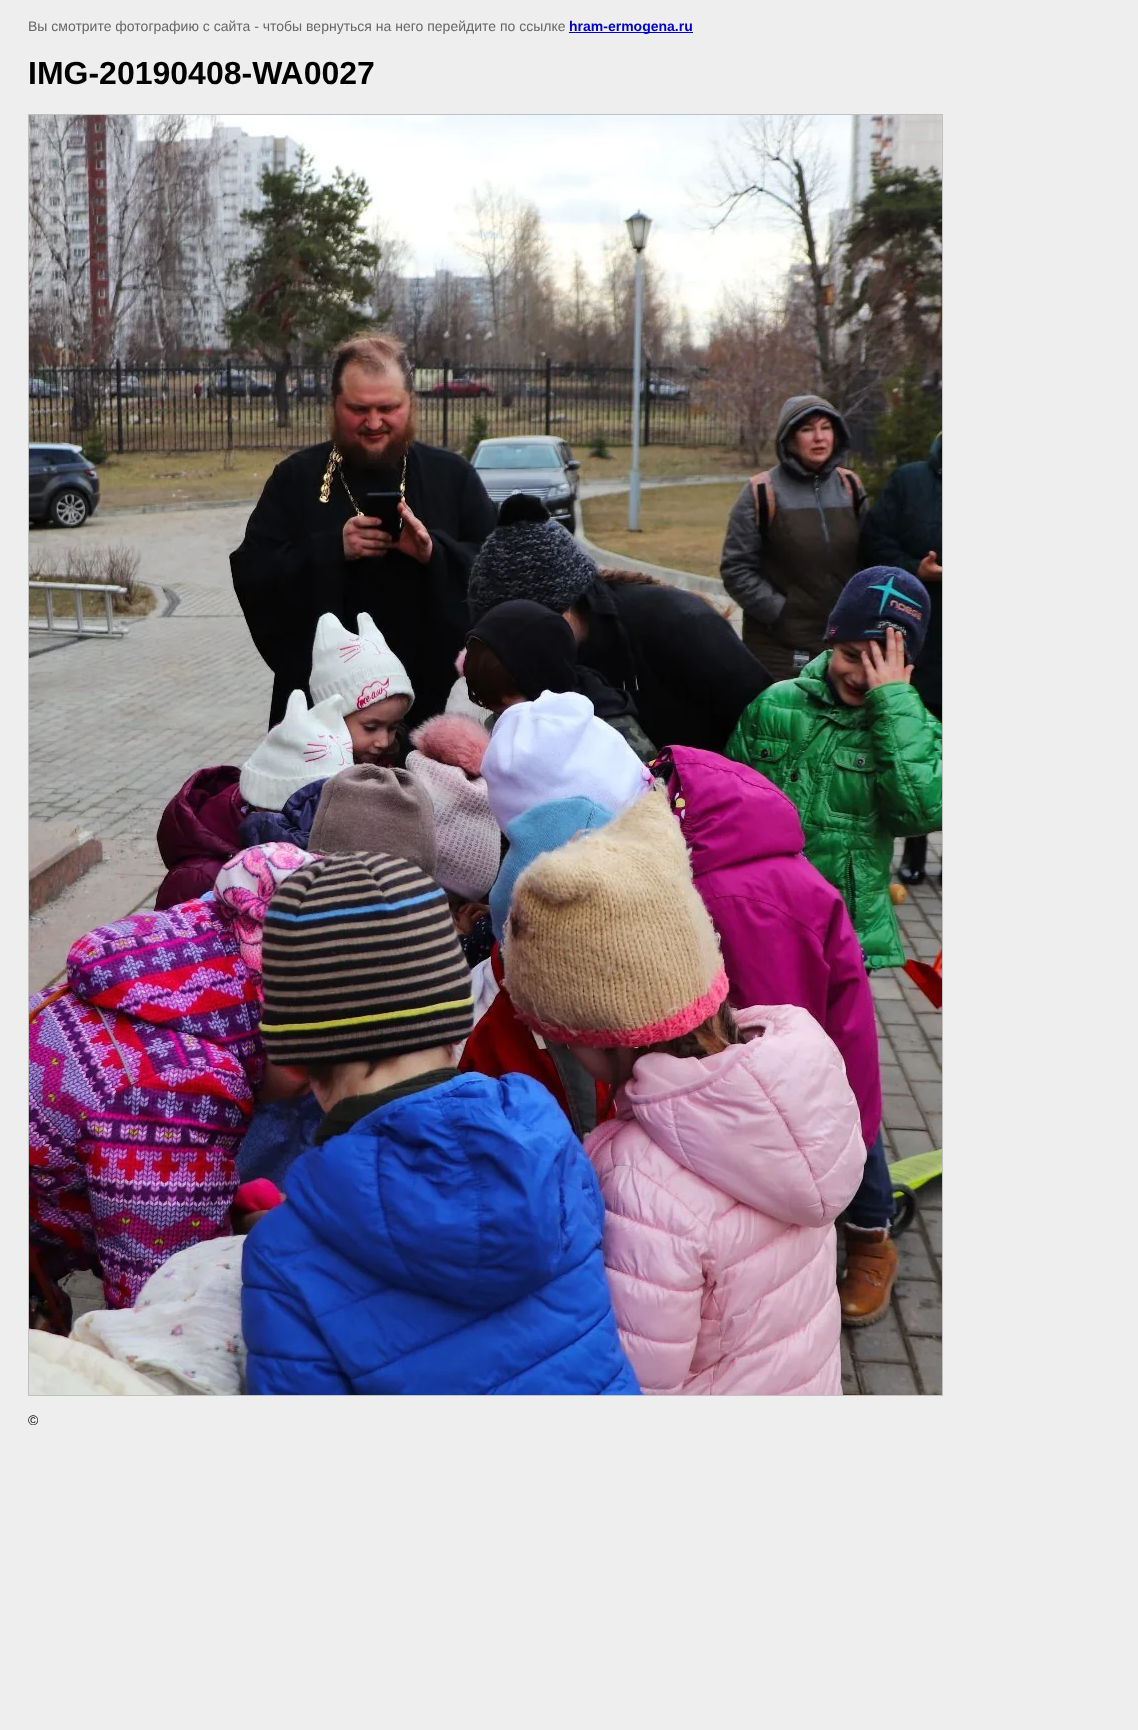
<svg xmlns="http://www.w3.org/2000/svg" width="1138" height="1730">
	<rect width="100%" height="100%" fill="#EEEEEE" />
	<text x="28" y="31" font-family="Liberation Sans" font-size="14" fill="#666666">Вы смотрите фотографию с сайта - чтобы вернуться на него перейдите по ссылке</text>
	<rect x="569" y="32" width="124" height="1" fill="#0000CC" />
	<text x="569" y="31" font-family="Liberation Sans" font-size="14" font-weight="700" fill="#0000CC">hram-ermogena.ru</text>
	<text x="28" y="84" font-family="Liberation Sans" font-size="32" font-weight="700" fill="#000000">IMG-20190408-WA0027</text>
	<rect x="28.5" y="114.5" width="914" height="1281" fill="none" stroke="#C0C0C0" />
	<image x="29" y="115" width="913" height="1280" href="assets/img1.png" />
	<text x="28" y="1425" font-family="Liberation Sans" font-size="14" fill="#000000">©</text>
</svg>
